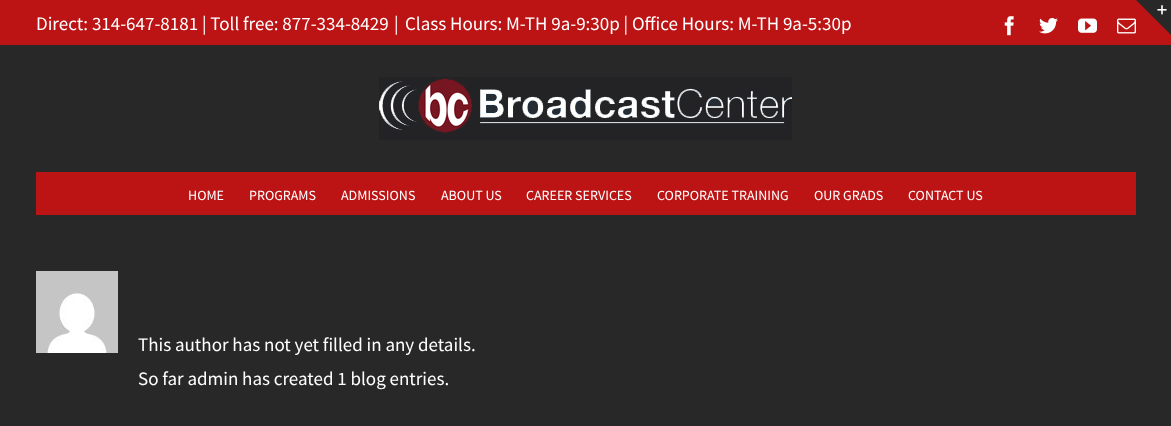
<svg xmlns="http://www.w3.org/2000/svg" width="1171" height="426">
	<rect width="100%" height="100%" fill="#282828" />
	<rect x="0" y="0" width="1171" height="45" fill="#BC1414" />
	<g font-family="Source Sans Pro" font-size="19" fill="#FFFFFF">
		<text x="36" y="30">Direct: 314-647-8181 | Toll free: 877-334-8429</text>
		<text x="394" y="30">|</text>
		<text x="405" y="30">Class Hours: M-TH 9a-9:30p | Office Hours: M-TH 9a-5:30p</text>
	</g>
	<image x="1004" y="16" width="10" height="20" href="assets/img1.png" />
	<image x="1039" y="18" width="19" height="16" href="assets/img2.png" />
	<image x="1078" y="18" width="19" height="15" href="assets/img3.png" />
	<image x="1117" y="18" width="19" height="16" href="assets/img4.png" />
	<image x="379" y="77" width="413" height="63" href="assets/img5.png" />
	<rect x="36" y="172" width="1100" height="43" fill="#BC1414" />
	<g font-family="Source Sans Pro" font-size="14" fill="#FFFFFF">
		<text x="188" y="200">HOME</text>
		<text x="249" y="200">PROGRAMS</text>
		<text x="341" y="200">ADMISSIONS</text>
		<text x="441" y="200">ABOUT US</text>
		<text x="526" y="200">CAREER SERVICES</text>
		<text x="657" y="200">CORPORATE TRAINING</text>
		<text x="814" y="200">OUR GRADS</text>
		<text x="908" y="200">CONTACT US</text>
	</g>
	<path d="M1136 0H1171V35Z" fill="#282828" />
	<image x="1157" y="5" width="10" height="10" href="assets/img6.png" />
	<image x="36" y="271" width="82" height="82" href="assets/img7.png" />
	<g font-family="Source Sans Pro" font-size="19" fill="#FFFFFF">
		<text x="138" y="351">This author has not yet filled in any details.</text>
		<text x="138" y="385">So far admin has created 1 blog entries.</text>
	</g>
</svg>
